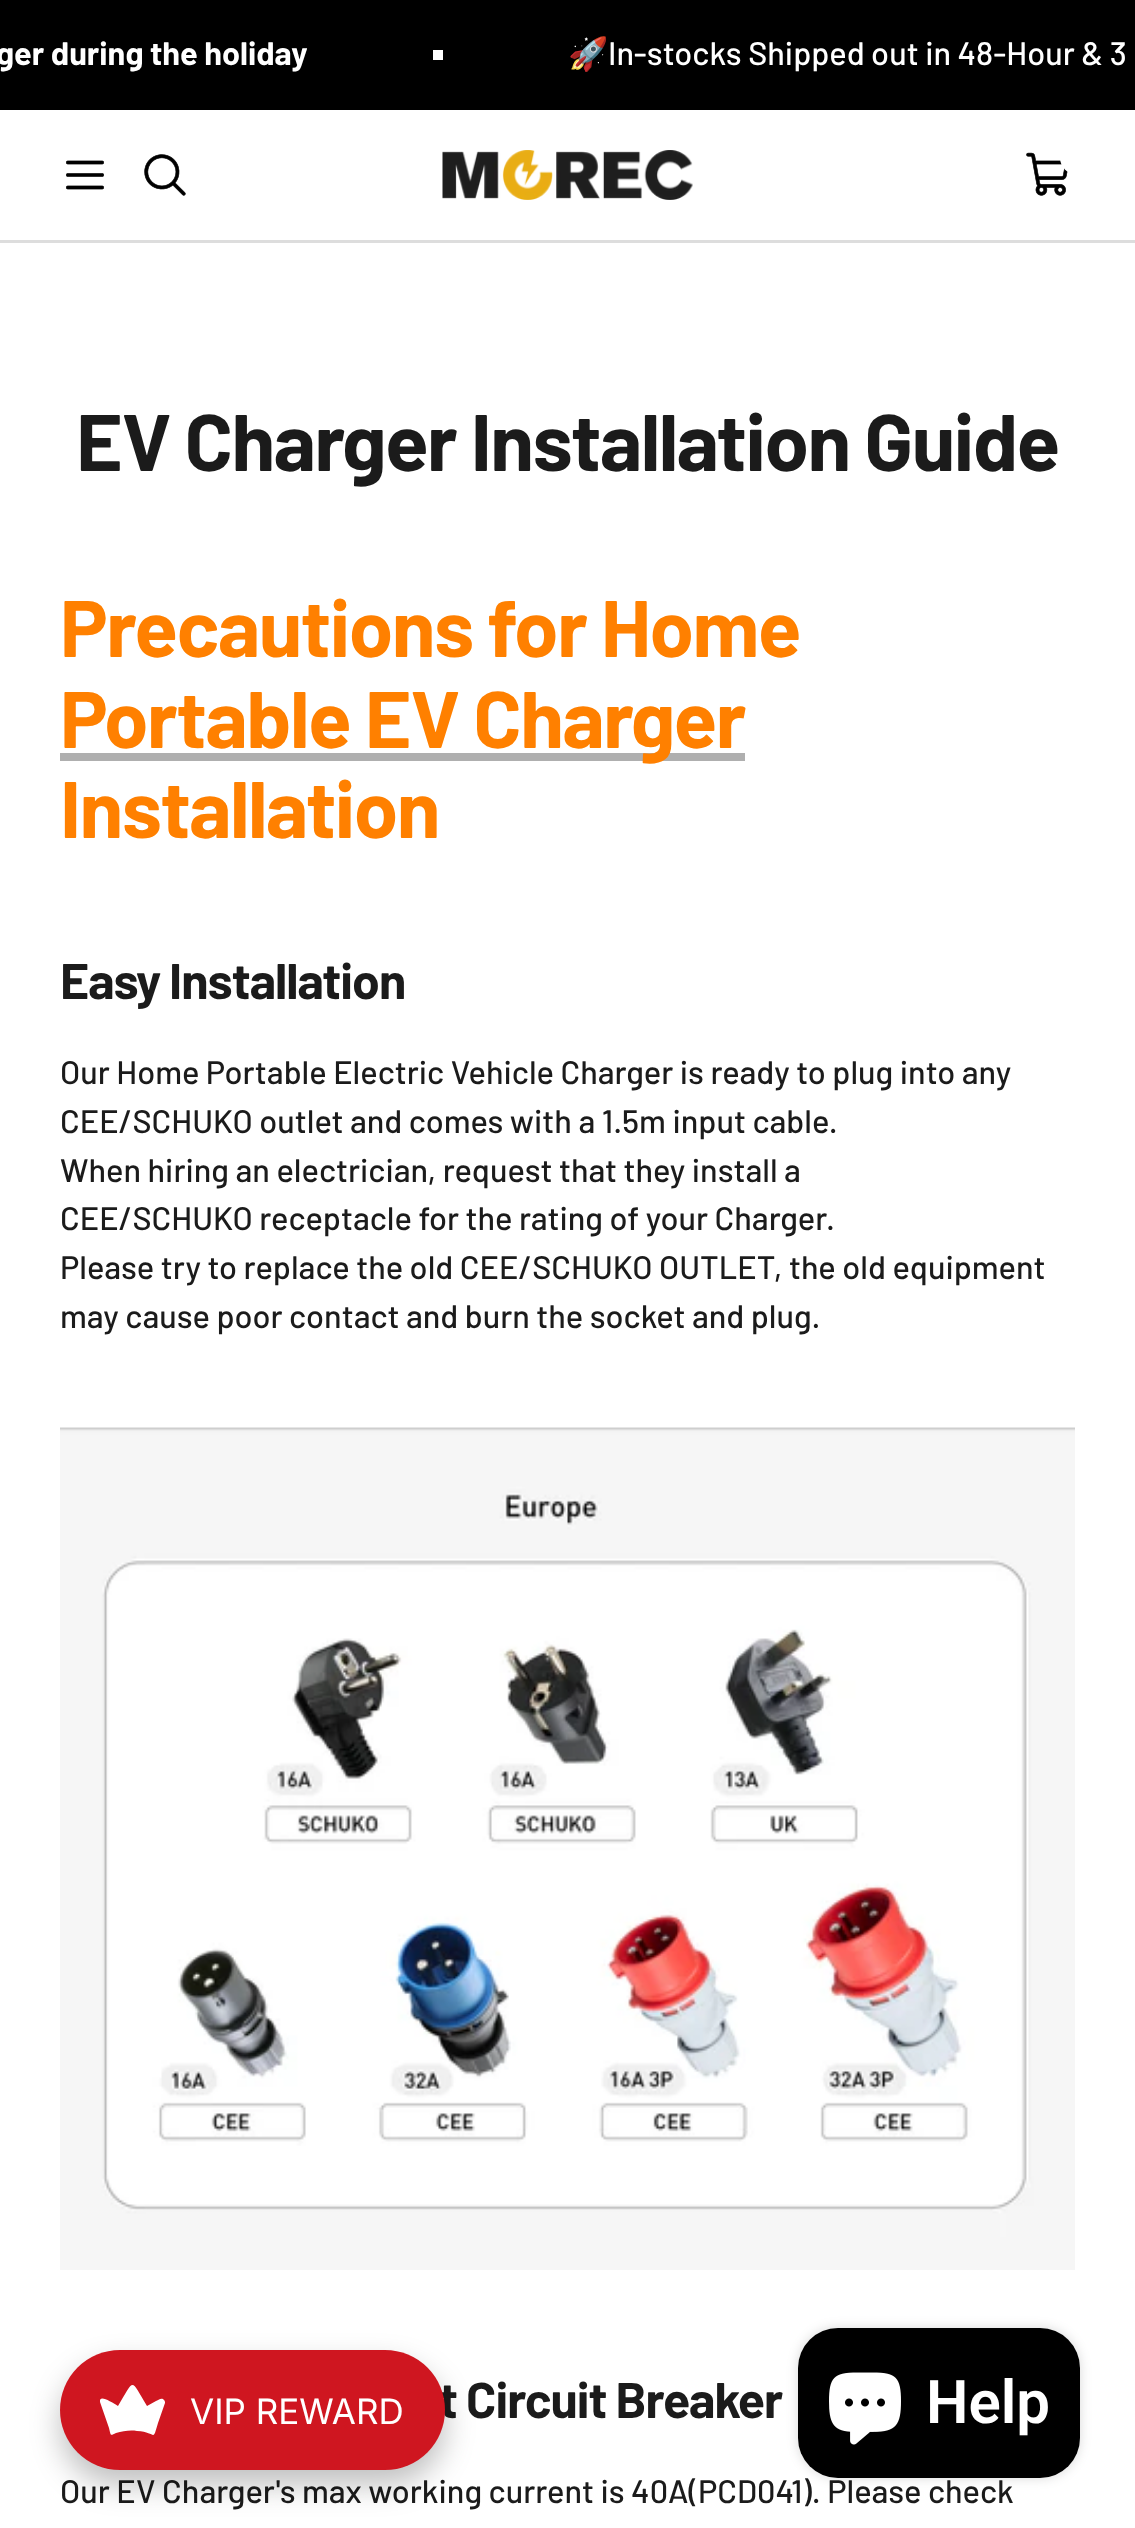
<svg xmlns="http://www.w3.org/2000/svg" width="1135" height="2528">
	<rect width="100%" height="100%" fill="#FFFFFF" />
	<rect x="0" y="0" width="1135" height="110" fill="#000000" />
	<text x="-4" y="65" font-family="Barlow" font-size="32.5" font-weight="700" fill="#FFFFFF">ger during the holiday</text>
	<rect x="433" y="50" width="10" height="10" fill="#FFFFFF" />
	<text x="568" y="65" font-family="Noto Color Emoji" font-size="32.5" fill="#FFFFFF">🚀</text>
	<text x="608" y="65" font-family="Barlow" font-size="32.5" font-weight="500" fill="#FFFFFF">In-stocks Shipped out in 48-Hour &amp; 3</text>
	<rect x="0" y="240" width="1135" height="3" fill="#DDDDDD" />
	<image x="66" y="160" width="38" height="30" href="assets/img1.png" />
	<image x="144" y="154" width="42" height="42" href="assets/img2.png" />
	<image x="442" y="150" width="251" height="50" href="assets/img3.png" />
	<image x="1026" y="152" width="42" height="44" href="assets/img4.png" />
	<circle cx="1077.5" cy="157.5" r="17.5" fill="#FFFFFF" />
	<text x="76" y="471" font-family="Barlow" font-size="80" font-weight="700" letter-spacing="-1.5" fill="#1B1B1B">EV Charger Installation Guide</text>
	<text x="60" y="657" font-family="Barlow" font-size="80" font-weight="700" letter-spacing="-1.5" fill="#FF8000">Precautions for Home</text>
	<rect x="60" y="753" width="685" height="8" fill="#AFAFAF" />
	<g font-family="Barlow" font-size="80" font-weight="700" letter-spacing="-1.5" fill="#FF8000">
		<text x="60" y="748">Portable EV Charger</text>
		<text x="60" y="838">Installation</text>
	</g>
	<text x="60" y="999" font-family="Barlow" font-size="50" font-weight="700" letter-spacing="-1" fill="#1B1B1B">Easy Installation</text>
	<g font-family="Barlow" font-size="32.5" font-weight="500" fill="#1B1B1B">
		<text x="60" y="1084">Our Home Portable Electric Vehicle Charger is ready to plug into any</text>
		<text x="60" y="1133">CEE/SCHUKO outlet and comes with a 1.5m input cable.</text>
		<text x="60" y="1182">When hiring an electrician, request that they install a</text>
		<text x="60" y="1230">CEE/SCHUKO receptacle for the rating of your Charger.</text>
		<text x="60" y="1279">Please try to replace the old CEE/SCHUKO OUTLET, the old equipment</text>
		<text x="60" y="1328">may cause poor contact and burn the socket and plug.</text>
	</g>
	<image x="60" y="1427" width="1015" height="843" href="assets/img5.png" />
	<text x="439" y="2418" font-family="Barlow" font-size="50" font-weight="700" letter-spacing="-1" fill="#1B1B1B">t Circuit Breaker</text>
	<text x="60" y="2503" font-family="Barlow" font-size="32.5" font-weight="500" fill="#1B1B1B">Our EV Charger's max working current is 40A(PCD041). Please check</text>
	<rect x="60" y="2365" width="385" height="120" rx="60" fill="#000000" fill-opacity="0.25" filter="blur(15px)" />
	<rect x="60" y="2350" width="385" height="120" rx="60" fill="#CF1620" />
	<path d="M165 2403L158 2423C152 2443 157 2432 137 2431C130 2430 123 2431 116 2433C110 2436 111 2436 109 2428L100 2402C99 2394 111 2402 118 2406C135 2378 130 2378 147 2406L156 2401C158 2400 162 2397 164 2400C165 2401 165 2402 165 2403Z" fill="#FFFFFF" />
	<text x="190" y="2424" font-family="Inter" font-size="35" fill="#FFFFFF">VIP REWARD</text>
	<rect x="798" y="2328" width="282" height="150" rx="40" fill="#000000" fill-opacity="0.15" filter="blur(6px)" />
	<rect x="798" y="2328" width="282" height="150" rx="40" fill="#000000" />
	<image x="829" y="2372" width="72" height="73" href="assets/img6.png" />
	<text x="926" y="2423" font-family="Roboto" font-size="60" font-weight="600" fill="#FFFFFF">Help</text>
</svg>
